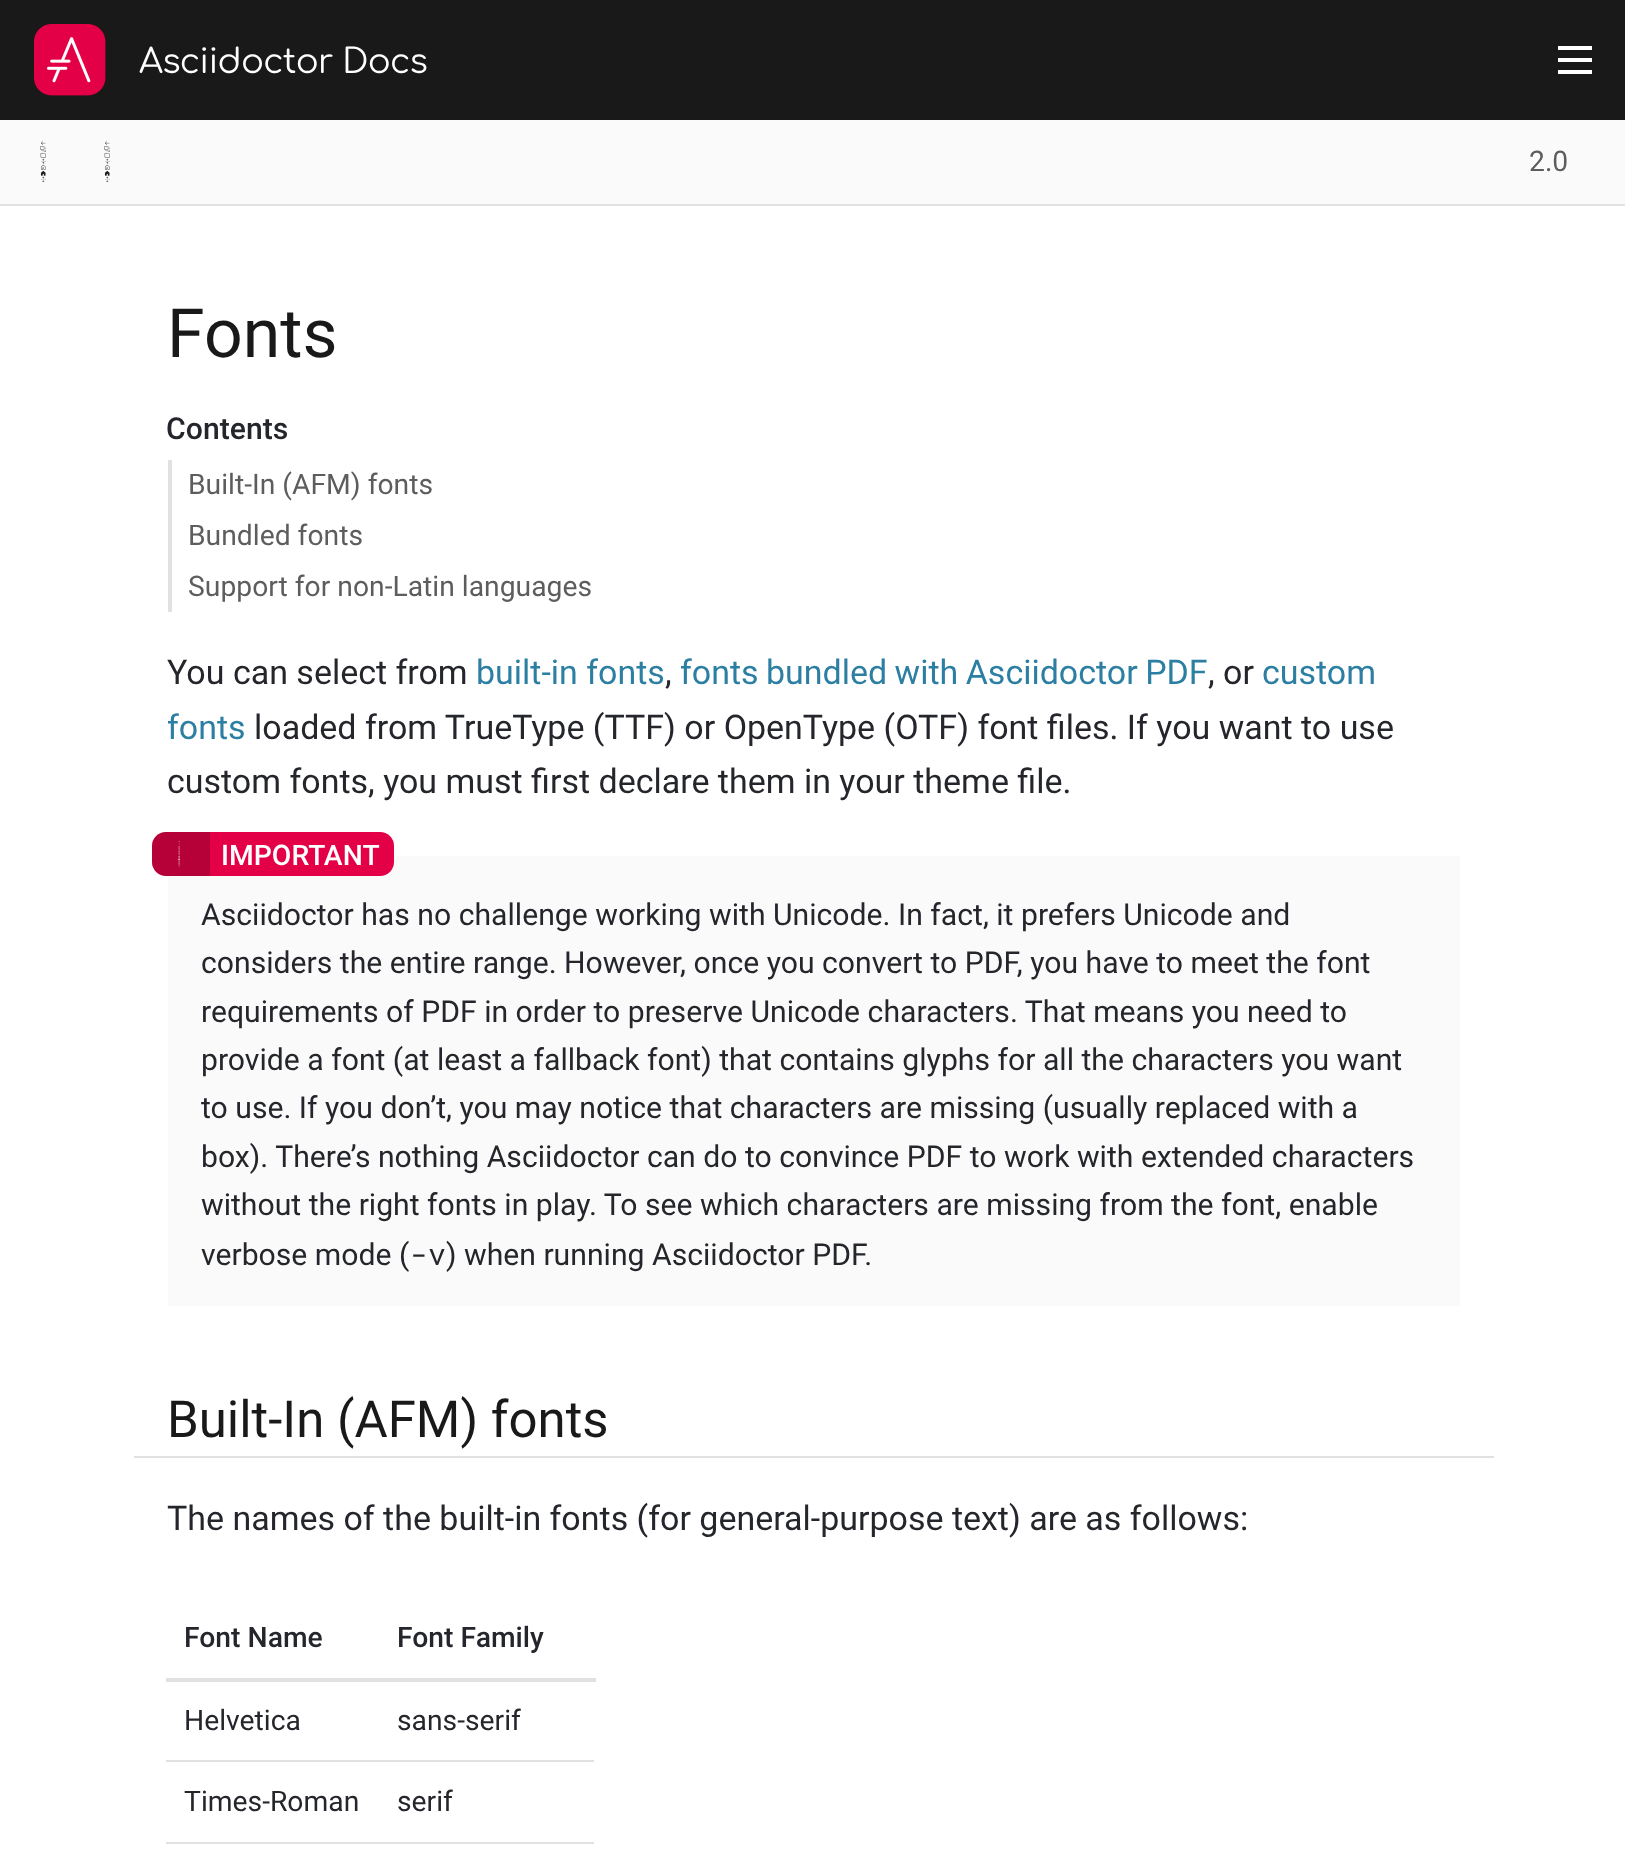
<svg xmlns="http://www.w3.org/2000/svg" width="1625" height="1873">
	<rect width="100%" height="100%" fill="#FFFFFF" />
	<rect x="0" y="0" width="1625" height="120" fill="#191919" />
	<image x="34" y="24" width="72" height="72" href="assets/img1.png" />
	<text x="139" y="73" font-family="Comfortaa" font-size="34" letter-spacing="-0.7" fill="#FFFFFF">Asciidoctor Docs</text>
	<rect x="1558" y="46" width="34" height="4" fill="#FFFFFF" />
	<rect x="1558" y="58" width="34" height="4" fill="#FFFFFF" />
	<rect x="1558" y="70" width="34" height="4" fill="#FFFFFF" />
	<rect x="0" y="204" width="1625" height="2" fill="#E1E1E1" />
	<rect x="0" y="120" width="1625" height="84" fill="#FAFAFA" />
	<image x="40" y="141" width="6" height="41" href="assets/img2.png" />
	<image x="104" y="141" width="6" height="41" href="assets/img2.png" />
	<text x="1529" y="171" font-family="Roboto" font-size="28.3" fill="#5D5D5D">2.0</text>
	<text x="167" y="357" font-family="Roboto" font-size="68" fill="#191919">Fonts</text>
	<text x="166" y="439" font-family="Roboto" font-size="30.2" font-weight="500" fill="#24262B">Contents</text>
	<rect x="168" y="460" width="4" height="152" fill="#E1E1E1" />
	<g font-family="Roboto" font-size="28.3" fill="#5D5D5D">
		<text x="188" y="494">Built-In (AFM) fonts</text>
		<text x="188" y="545">Bundled fonts</text>
		<text x="188" y="596">Support for non-Latin languages</text>
	</g>
	<text x="167" y="684" font-family="Roboto" font-size="34" fill="#24262B">You can select from</text>
	<text x="476" y="684" font-family="Roboto" font-size="34" fill="#2C7FA2">built-in fonts</text>
	<text x="665" y="684" font-family="Roboto" font-size="34" fill="#24262B">,</text>
	<text x="680" y="684" word-spacing="-1" font-family="Roboto" font-size="34" fill="#2C7FA2">fonts bundled with Asciidoctor PDF</text>
	<text x="1208" y="684" font-family="Roboto" font-size="34" fill="#24262B">, or</text>
	<g font-family="Roboto" font-size="34" fill="#2C7FA2">
		<text x="1262" y="684">custom</text>
		<text x="167" y="739">fonts</text>
	</g>
	<g font-family="Roboto" font-size="34" fill="#24262B">
		<text x="254" y="739">loaded from TrueType (TTF) or OpenType (OTF) font files. If you want to use</text>
		<text x="167" y="793">custom fonts, you must first declare them in your theme file.</text>
	</g>
	<rect x="168" y="856" width="1292" height="450" fill="#FAFAFA" />
	<rect x="152" y="832" width="242" height="44" rx="14" fill="#E40046" />
	<path d="M166 832H210V876H166C158.5 876 152 869.5 152 862V846C152 838.5 158.5 832 166 832Z" fill="#000000" fill-opacity="0.2" />
	<image x="178" y="841" width="2" height="27" href="assets/img3.png" />
	<text x="221" y="865" font-family="Roboto" font-size="28.3" font-weight="500" fill="#FFFFFF">IMPORTANT</text>
	<g font-family="Roboto" font-size="30.2" fill="#24262B">
		<text x="201" y="925">Asciidoctor has no challenge working with Unicode. In fact, it prefers Unicode and</text>
		<text x="201" y="973">considers the entire range. However, once you convert to PDF, you have to meet the font</text>
		<text x="201" y="1022">requirements of PDF in order to preserve Unicode characters. That means you need to</text>
		<text x="201" y="1070">provide a font (at least a fallback font) that contains glyphs for all the characters you want</text>
		<text x="201" y="1118">to use. If you don’t, you may notice that characters are missing (usually replaced with a</text>
		<text x="201" y="1167">box). There’s nothing Asciidoctor can do to convince PDF to work with extended characters</text>
		<text x="201" y="1215">without the right fonts in play. To see which characters are missing from the font, enable</text>
		<text x="201" y="1265">verbose mode (</text>
	</g>
	<text x="410" y="1265" font-family="Roboto Mono" font-size="30.2" fill="#24262B">-v</text>
	<text x="446" y="1265" font-family="Roboto" font-size="30.2" fill="#24262B">) when running Asciidoctor PDF.</text>
	<rect x="134" y="1456" width="1360" height="2" fill="#E1E1E1" />
	<text x="167" y="1437" font-family="Roboto" font-size="51" fill="#191919">Built-In (AFM) fonts</text>
	<text x="167" y="1530" font-family="Roboto" font-size="34" fill="#24262B">The names of the built-in fonts (for general-purpose text) are as follows:</text>
	<text x="184" y="1647" font-family="Roboto" font-size="28.3" font-weight="500" fill="#24262B">Font Name</text>
	<rect x="166" y="1678" width="430" height="4" fill="#E1E1E1" />
	<text x="397" y="1647" font-family="Roboto" font-size="28.3" font-weight="500" fill="#24262B">Font Family</text>
	<g font-family="Roboto" font-size="28.3" fill="#24262B">
		<text x="184" y="1730">Helvetica</text>
		<text x="397" y="1730">sans-serif</text>
		<text x="184" y="1811">Times-Roman</text>
	</g>
	<rect x="166" y="1760" width="428" height="2" fill="#E1E1E1" />
	<text x="397" y="1811" font-family="Roboto" font-size="28.3" fill="#24262B">serif</text>
	<rect x="166" y="1842" width="428" height="2" fill="#E1E1E1" />
</svg>
